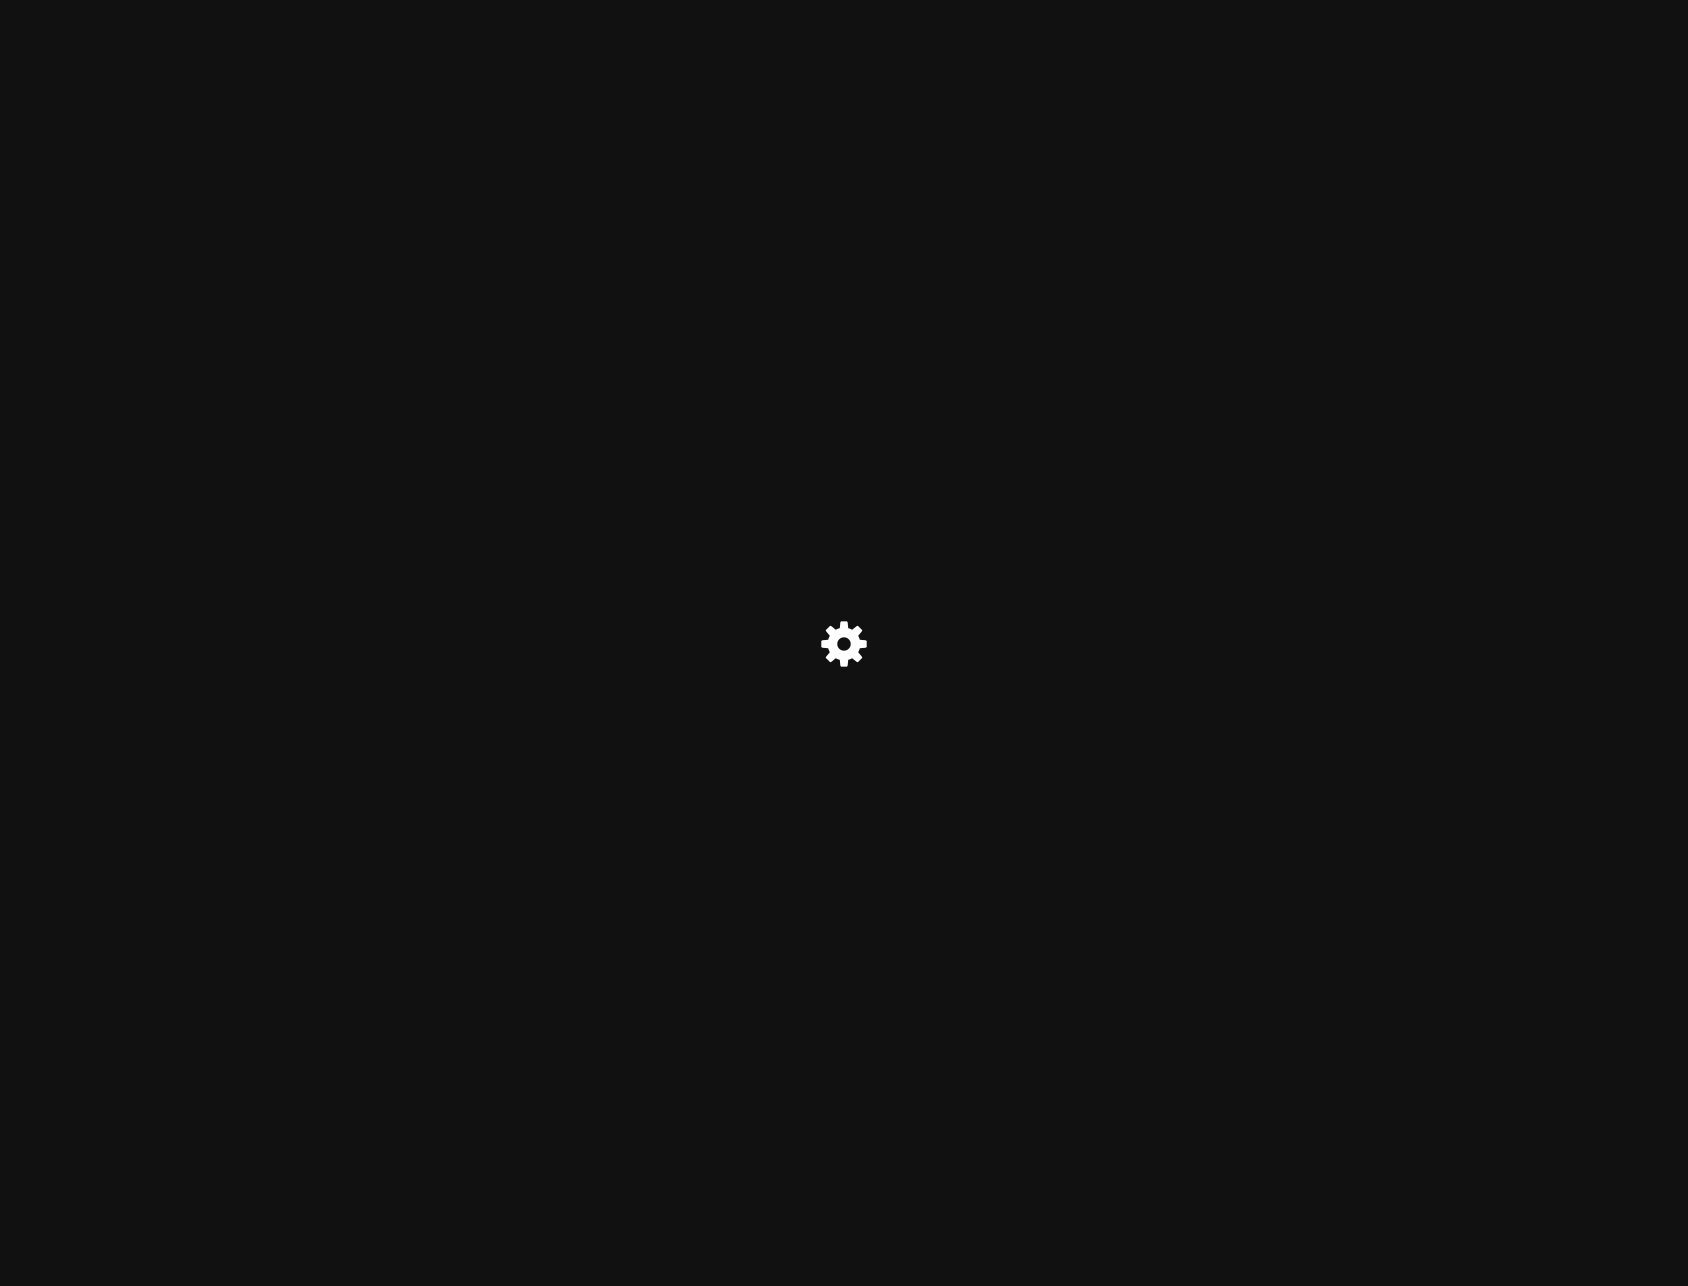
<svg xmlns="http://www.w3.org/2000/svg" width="1688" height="1286">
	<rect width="100%" height="100%" fill="#111111" />
	<image x="821" y="621" width="46" height="46" href="assets/img1.png" />
</svg>
